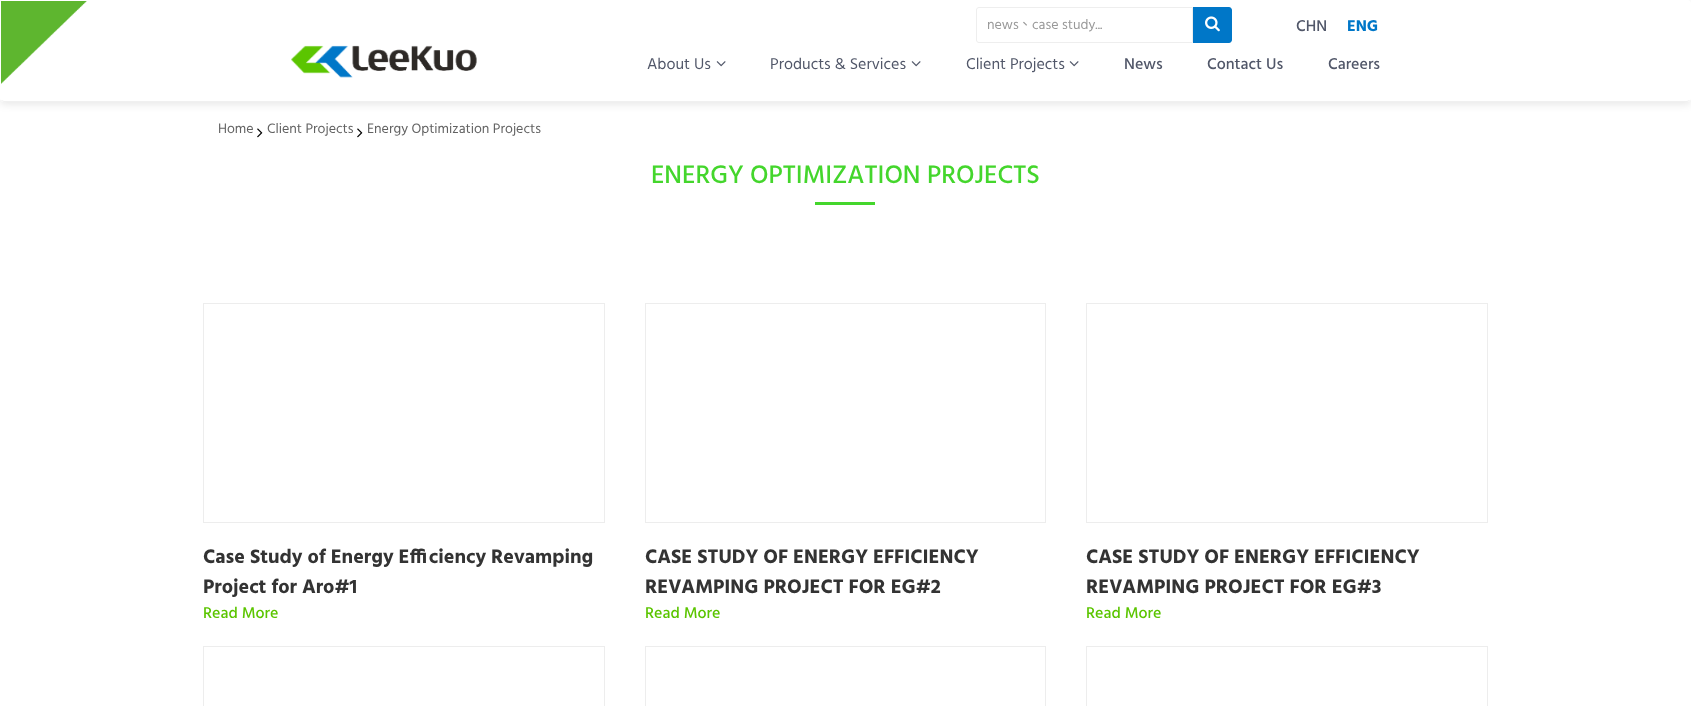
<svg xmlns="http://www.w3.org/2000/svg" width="1691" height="706">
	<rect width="100%" height="100%" fill="#FFFFFF" />
	<rect x="0" y="2" width="1691" height="102" rx="4" fill="#000000" fill-opacity="0.1" filter="blur(4px)" />
	<rect x="0" y="0" width="1691" height="102" rx="4" fill="#FFFFFF" />
	<image x="1" y="1" width="86" height="83" href="assets/img1.png" />
	<path d="M1689.5 100.5L1687 101.5H4L1.5 100.5" fill="none" stroke="#F0F0F0" />
	<path d="M979 7.5H1192.5V42.5H979C977.5 42.5 976.5 41.5 976.5 40V10C976.5 8.5 977.5 7.5 979 7.5Z" fill="none" stroke="#EEEEEE" />
	<text x="987" y="29" font-family="Hind" font-size="14" fill="#999999">news</text>
	<text x="1018" y="29" font-family="Noto Sans CJK TC" font-size="14" fill="#999999">、</text>
	<text x="1032" y="29" font-family="Hind" font-size="14" fill="#999999">case study...</text>
	<path d="M1193 7H1229C1230.5 7 1232 8.5 1232 10V40C1232 41.5 1230.5 43 1229 43H1193Z" fill="#0077C8" />
	<image x="1205" y="16" width="15" height="16" href="assets/img2.png" />
	<text x="1296" y="31" font-family="Hind" font-size="16" font-weight="500" fill="#515769">CHN</text>
	<text x="1347" y="31" font-family="Hind" font-size="16" font-weight="700" fill="#0077C8">ENG</text>
	<image x="291" y="45" width="186" height="33" href="assets/img3.png" />
	<text x="647" y="69" font-family="Hind" font-size="16" fill="#515769">About Us</text>
	<image x="716" y="61" width="10" height="6" href="assets/img4.png" />
	<text x="770" y="69" font-family="Hind" font-size="16" fill="#515769">Products &amp; Services</text>
	<image x="911" y="61" width="10" height="6" href="assets/img4.png" />
	<text x="966" y="69" font-family="Hind" font-size="16" fill="#515769">Client Projects</text>
	<image x="1069" y="61" width="10" height="6" href="assets/img4.png" />
	<g font-family="Hind" font-size="16" font-weight="500" fill="#515769">
		<text x="1124" y="69">News</text>
		<text x="1207" y="69">Contact Us</text>
		<text x="1328" y="69">Careers</text>
	</g>
	<text x="218" y="133" font-family="Hind" font-size="14" fill="#626262">Home</text>
	<image x="257" y="128" width="6" height="10" href="assets/img5.png" />
	<text x="267" y="133" font-family="Hind" font-size="14" fill="#626262">Client Projects</text>
	<image x="357" y="128" width="6" height="10" href="assets/img5.png" />
	<text x="367" y="133" font-family="Hind" font-size="14" fill="#626262">Energy Optimization Projects</text>
	<text x="651" y="183" font-family="Hind" font-size="26" font-weight="500" fill="#44D62C">ENERGY OPTIMIZATION PROJECTS</text>
	<rect x="815" y="202" width="60" height="3" fill="#44D62C" />
	<rect x="203.5" y="303.5" width="401" height="219" fill="none" stroke="#EDEDED" />
	<g font-family="Hind" font-size="20" font-weight="700" fill="#333333">
		<text x="203" y="563">Case Study of Energy Efficiency Revamping</text>
		<text x="203" y="593">Project for Aro#1</text>
	</g>
	<text x="203" y="618" font-family="Hind" font-size="16" font-weight="500" fill="#5BC500">Read More</text>
	<rect x="645.5" y="303.5" width="400" height="219" fill="none" stroke="#EDEDED" />
	<g font-family="Hind" font-size="20" font-weight="700" fill="#333333">
		<text x="645" y="563">CASE STUDY OF ENERGY EFFICIENCY</text>
		<text x="645" y="593">REVAMPING PROJECT FOR EG#2</text>
	</g>
	<text x="645" y="618" font-family="Hind" font-size="16" font-weight="500" fill="#5BC500">Read More</text>
	<rect x="1086.5" y="303.5" width="401" height="219" fill="none" stroke="#EDEDED" />
	<g font-family="Hind" font-size="20" font-weight="700" fill="#333333">
		<text x="1086" y="563">CASE STUDY OF ENERGY EFFICIENCY</text>
		<text x="1086" y="593">REVAMPING PROJECT FOR EG#3</text>
	</g>
	<text x="1086" y="618" font-family="Hind" font-size="16" font-weight="500" fill="#5BC500">Read More</text>
	<rect x="203.5" y="646.5" width="401" height="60" fill="none" stroke="#EDEDED" />
	<rect x="645.5" y="646.5" width="400" height="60" fill="none" stroke="#EDEDED" />
	<rect x="1086.5" y="646.5" width="401" height="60" fill="none" stroke="#EDEDED" />
</svg>
